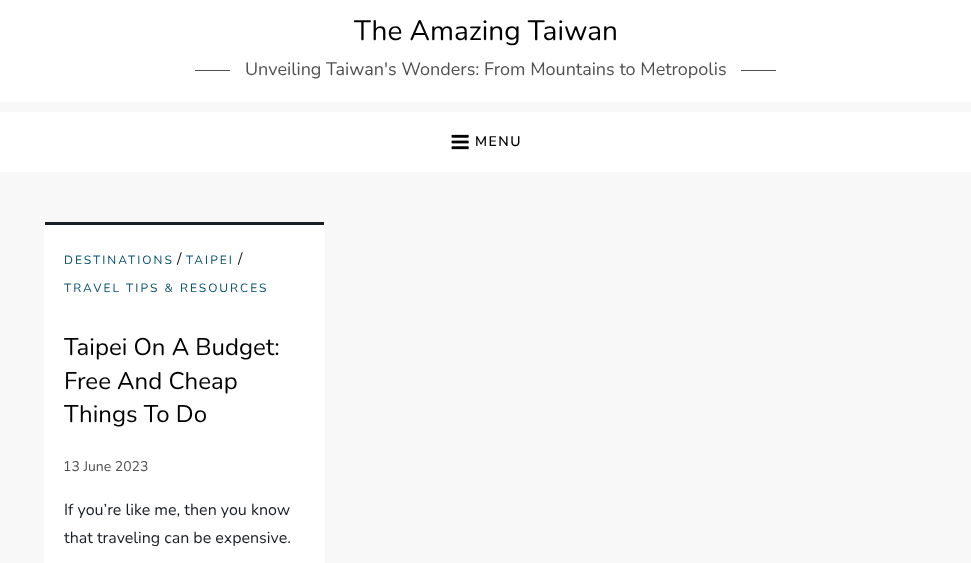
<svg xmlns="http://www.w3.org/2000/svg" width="971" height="563">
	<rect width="100%" height="100%" fill="#F8F8F8" />
	<rect x="0" y="0" width="971" height="172" fill="#FFFFFF" />
	<text x="354" y="40" font-family="Nunito" font-size="28" fill="#000000">The Amazing Taiwan</text>
	<rect x="195" y="70" width="35" height="1" fill="#515151" />
	<text x="245" y="75" font-family="Nunito" font-size="18" fill="#515151">Unveiling Taiwan's Wonders: From Mountains to Metropolis</text>
	<rect x="741" y="70" width="35" height="1" fill="#515151" />
	<rect x="0" y="102" width="971" height="10" fill="#F8F8F8" />
	<image x="451" y="134" width="18" height="16" href="assets/img1.png" />
	<text x="475" y="146" font-family="Nunito" font-size="14" font-weight="600" letter-spacing="1.5" fill="#000000">MENU</text>
	<rect x="44" y="222" width="281" height="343" rx="2" fill="#FFFFFF" />
	<rect x="45" y="222" width="279" height="3" fill="#191E24" />
	<text x="64" y="264" font-family="Nunito" font-size="12" letter-spacing="2" fill="#054E6D">DESTINATIONS</text>
	<text x="177" y="264" font-family="Nunito" font-size="16" fill="#191E24">/</text>
	<text x="186" y="264" font-family="Nunito" font-size="12" letter-spacing="2" fill="#054E6D">TAIPEI</text>
	<text x="238" y="264" font-family="Nunito" font-size="16" fill="#191E24">/</text>
	<text x="64" y="292" font-family="Nunito" font-size="12" letter-spacing="2" fill="#054E6D">TRAVEL TIPS &amp; RESOURCES</text>
	<g font-family="Nunito" font-size="24" fill="#000000">
		<text x="64" y="355">Taipei On A Budget:</text>
		<text x="64" y="389">Free And Cheap</text>
		<text x="64" y="422">Things To Do</text>
	</g>
	<text x="63" y="471" font-family="Nunito" font-size="14" fill="#515151">13 June 2023</text>
	<g font-family="Nunito" font-size="16" fill="#191E24">
		<text x="64" y="515">If you’re like me, then you know</text>
		<text x="64" y="543">that traveling can be expensive.</text>
	</g>
</svg>
